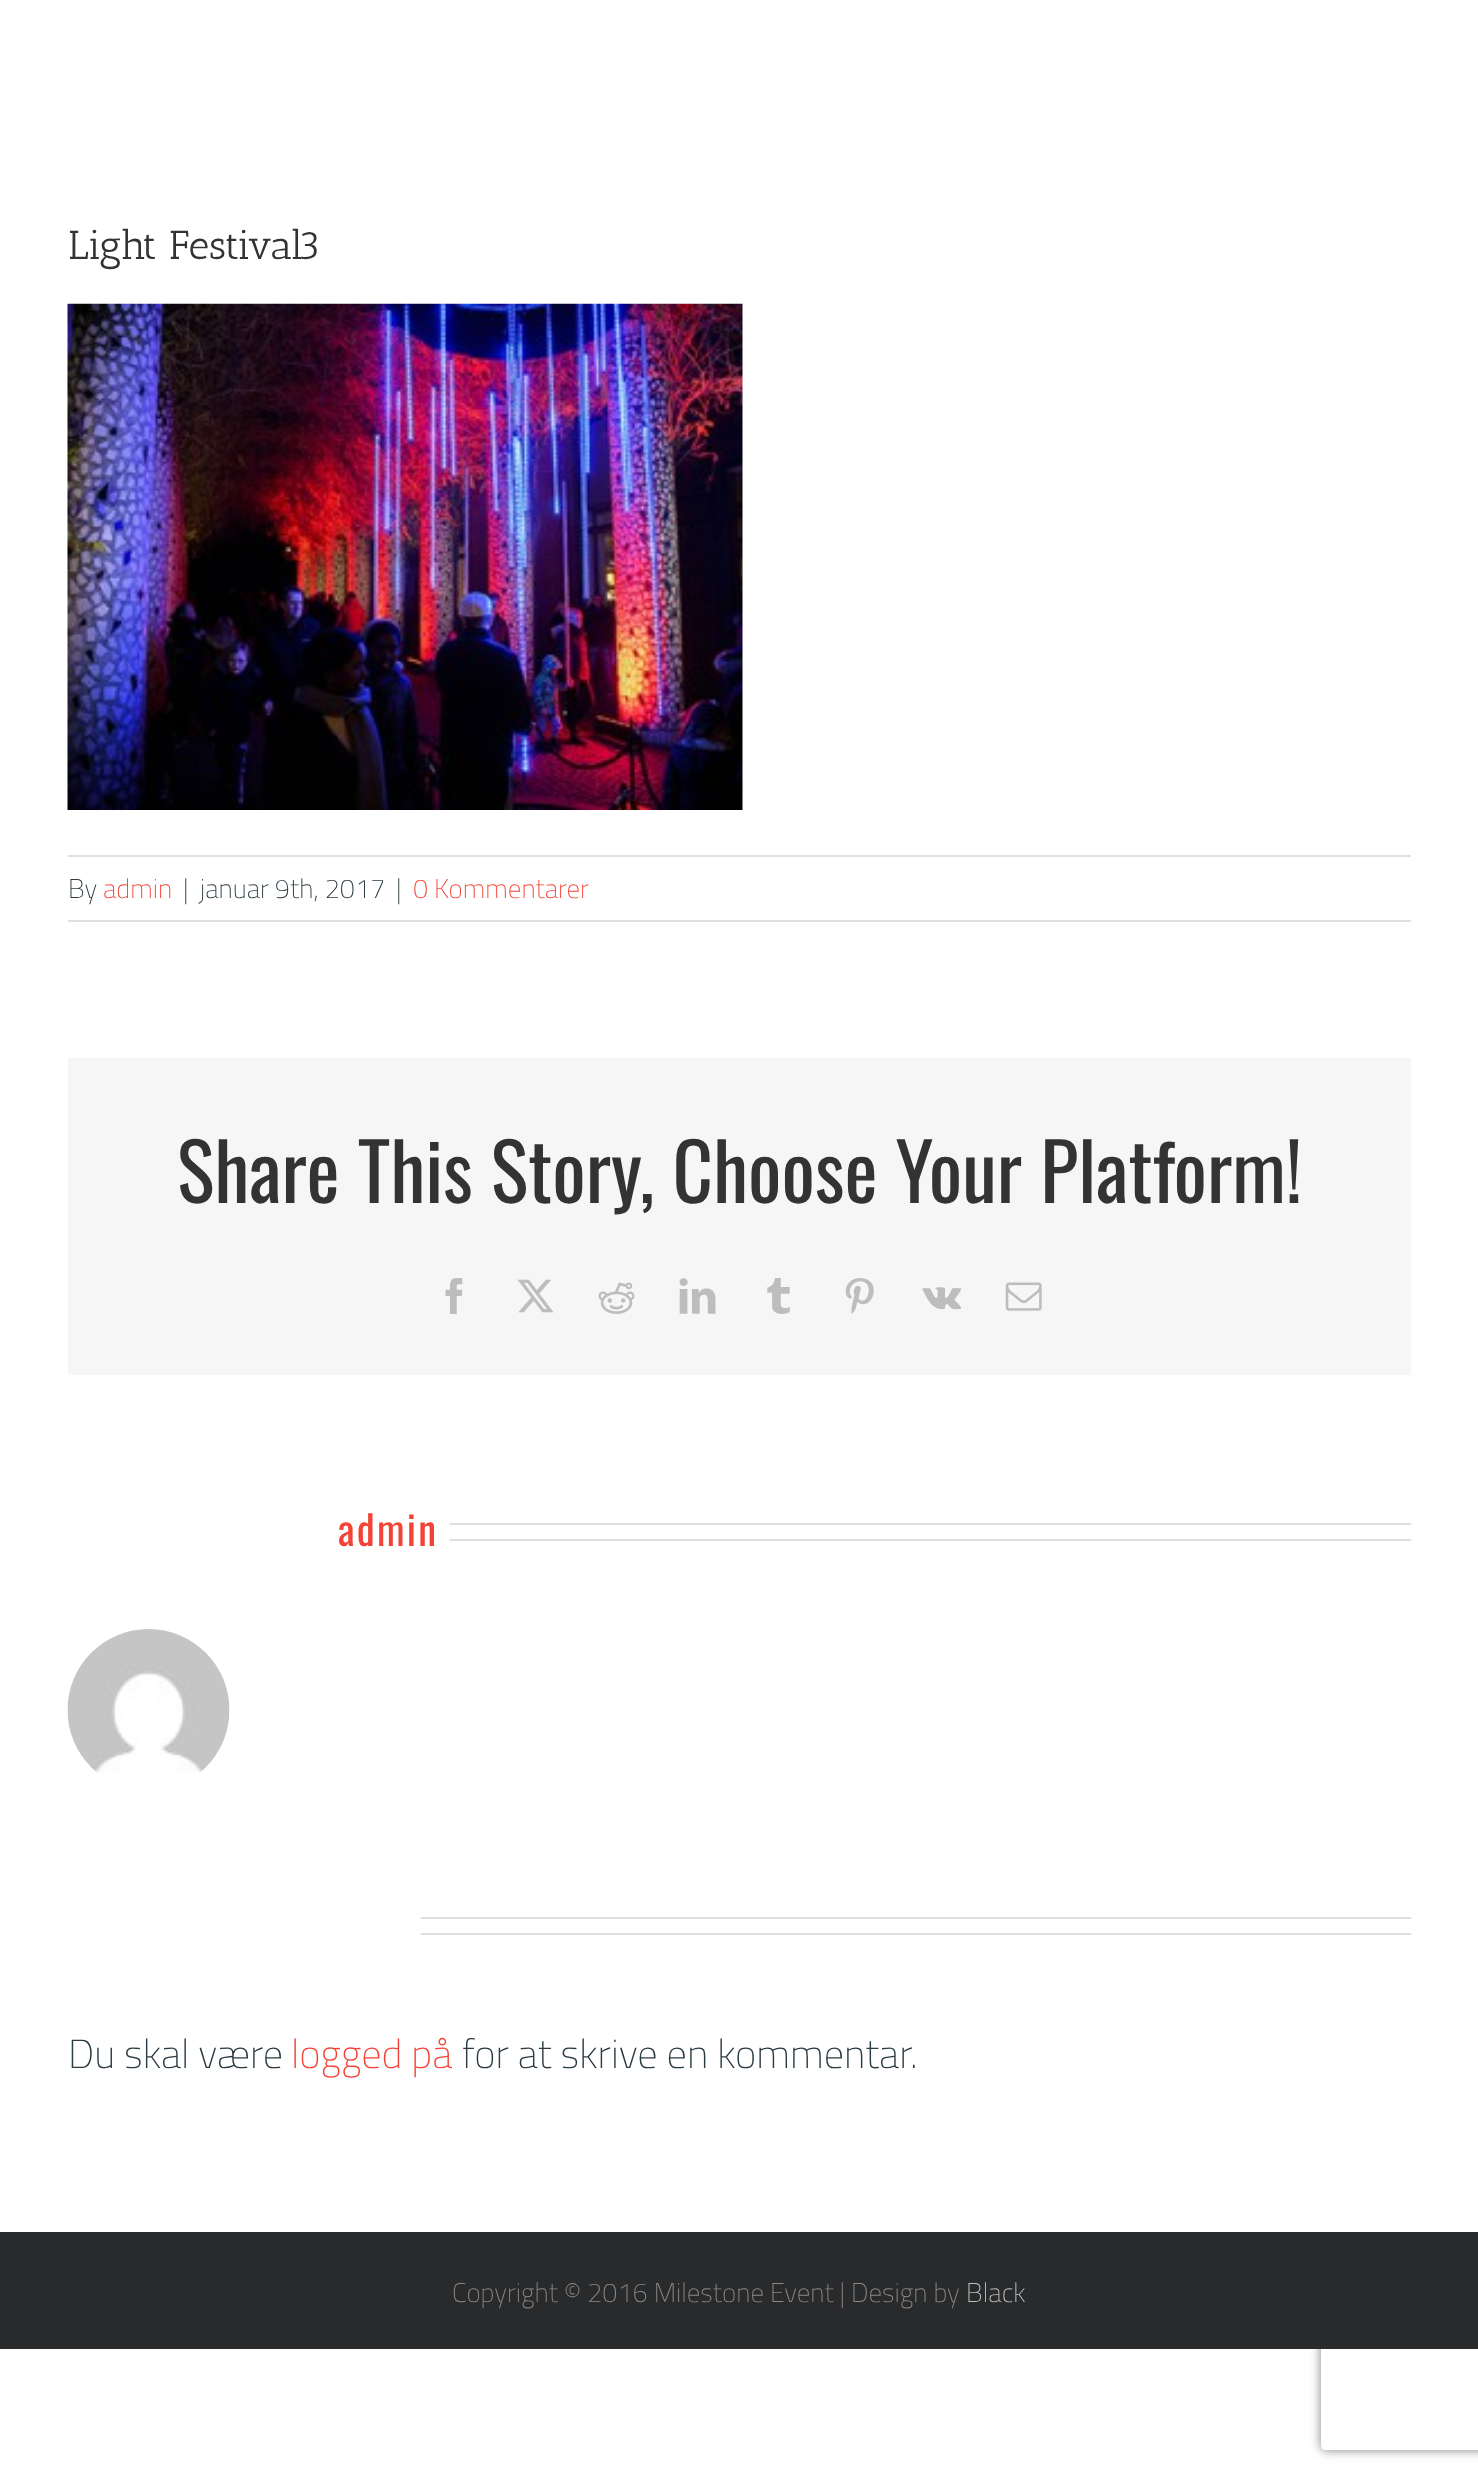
<!DOCTYPE html>
<meta charset="utf-8">
<style>body { margin: 0 } canvas { display: block }</style>
<canvas id="canvas" width="1478" height="2480"></canvas>
<script type="module">
  const canvas = document.getElementById("canvas");
  const g = canvas.getContext("2d");
  g.miterLimit = 4;
  g.fontKerning = "normal";
  function drawText(s, x, y, [font, color]) {
    g.font = font;
    g.fillStyle = color;
    g.fillText(s, x, y);
  }
  function fillBox(x, y, w, h, color) {
    g.fillStyle = color;
    g.fillRect(x, y, w, h);
  }
  async function drawPicture(src, x, y, w, h) {
    const img = new Image();
    img.src = src;
    await img.decode();
    g.drawImage(img, x, y, w, h);
  }

  const s1 = ["40.5px Antic Slab", "#333333"];
  const s2 = ["200 27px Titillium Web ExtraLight", "#2A3A42"];
  const s3 = ["200 27px Titillium Web ExtraLight", "#F44336"];
  const s4 = ["78.75px Oswald", "#333333"];
  const s5 = ["40.5px Oswald", "#F44336"];
  const s6 = ["200 40.5px Titillium Web ExtraLight", "#2A3A42"];
  const s7 = ["200 40.5px Titillium Web ExtraLight", "#F44336"];
  const s8 = ["200 27px Titillium Web ExtraLight", "#8C8989"];
  const s9 = ["200 27px Titillium Web ExtraLight", "#BFBFBF"];

  fillBox(0, 0, 1478, 2480, "#FFFFFF");
  drawText("Light Festival3", 68, 259, s1);
  await drawPicture("pic1.png", 67, 303, 676, 507);
  fillBox(68, 855, 1343, 2, "#E0DEDE");
  fillBox(68, 920, 1343, 2, "#E0DEDE");
  drawText("By", 68, 898, s2);
  drawText("admin", 103, 898, s3);
  drawText("|", 183, 898, s2);
  drawText("januar 9th, 2017", 200, 898, s2);
  drawText("|", 396, 898, s2);
  drawText("0 Kommentarer", 413, 898, s3);
  fillBox(68, 1058, 1343, 317, "#F6F6F6");
  drawText("Share This Story, Choose Your Platform!", 177, 1203, s4);
  await drawPicture("pic2.png", 445, 1278, 18, 36);
  await drawPicture("pic3.png", 517, 1279, 37, 34);
  await drawPicture("pic4.png", 598, 1282, 37, 32);
  await drawPicture("pic5.png", 679, 1278, 37, 36);
  await drawPicture("pic6.png", 767, 1278, 23, 36);
  await drawPicture("pic7.png", 845, 1278, 29, 36);
  await drawPicture("pic8.png", 922, 1287, 39, 23);
  await drawPicture("pic9.png", 1005, 1282, 37, 29);
  g.letterSpacing = "2.25px";
  drawText("admin", 338, 1546, s5);
  fillBox(450, 1523, 961, 2, "#E0DEDE");
  fillBox(450, 1539, 961, 2, "#E0DEDE");
  await drawPicture("pic10.png", 67, 1629, 163, 144);
  fillBox(421, 1917, 990, 2, "#E0DEDE");
  fillBox(421, 1933, 990, 2, "#E0DEDE");
  g.letterSpacing = "0px";
  drawText("Du skal være", 68, 2068, s6);
  drawText("logged på", 291, 2068, s7);
  drawText("for at skrive en kommentar.", 462, 2068, s6);
  g.save();
  g.beginPath();
  g.moveTo(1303, 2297);
  g.lineTo(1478, 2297);
  g.lineTo(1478, 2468);
  g.lineTo(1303, 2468);
  g.closePath();
  g.moveTo(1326, 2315);
  g.lineTo(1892, 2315);
  g.bezierCurveTo(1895, 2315, 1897, 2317, 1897, 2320);
  g.lineTo(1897, 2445);
  g.bezierCurveTo(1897, 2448, 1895, 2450, 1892, 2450);
  g.lineTo(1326, 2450);
  g.bezierCurveTo(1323, 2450, 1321, 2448, 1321, 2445);
  g.lineTo(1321, 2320);
  g.bezierCurveTo(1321, 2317, 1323, 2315, 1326, 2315);
  g.closePath();
  g.clip("evenodd");
  g.fillStyle = "#808080";
  g.filter = "blur(5.5px)";
  g.beginPath();
  g.roundRect(1321, 2315, 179, 135, 5);
  g.fill();
  g.filter = "none";
  g.restore();
  fillBox(0, 2232, 1478, 117, "#282A2B");
  drawText("Copyright © 2016 Milestone Event | Design by", 452, 2302, s8);
  drawText("Black", 966, 2302, s9);
</script>
